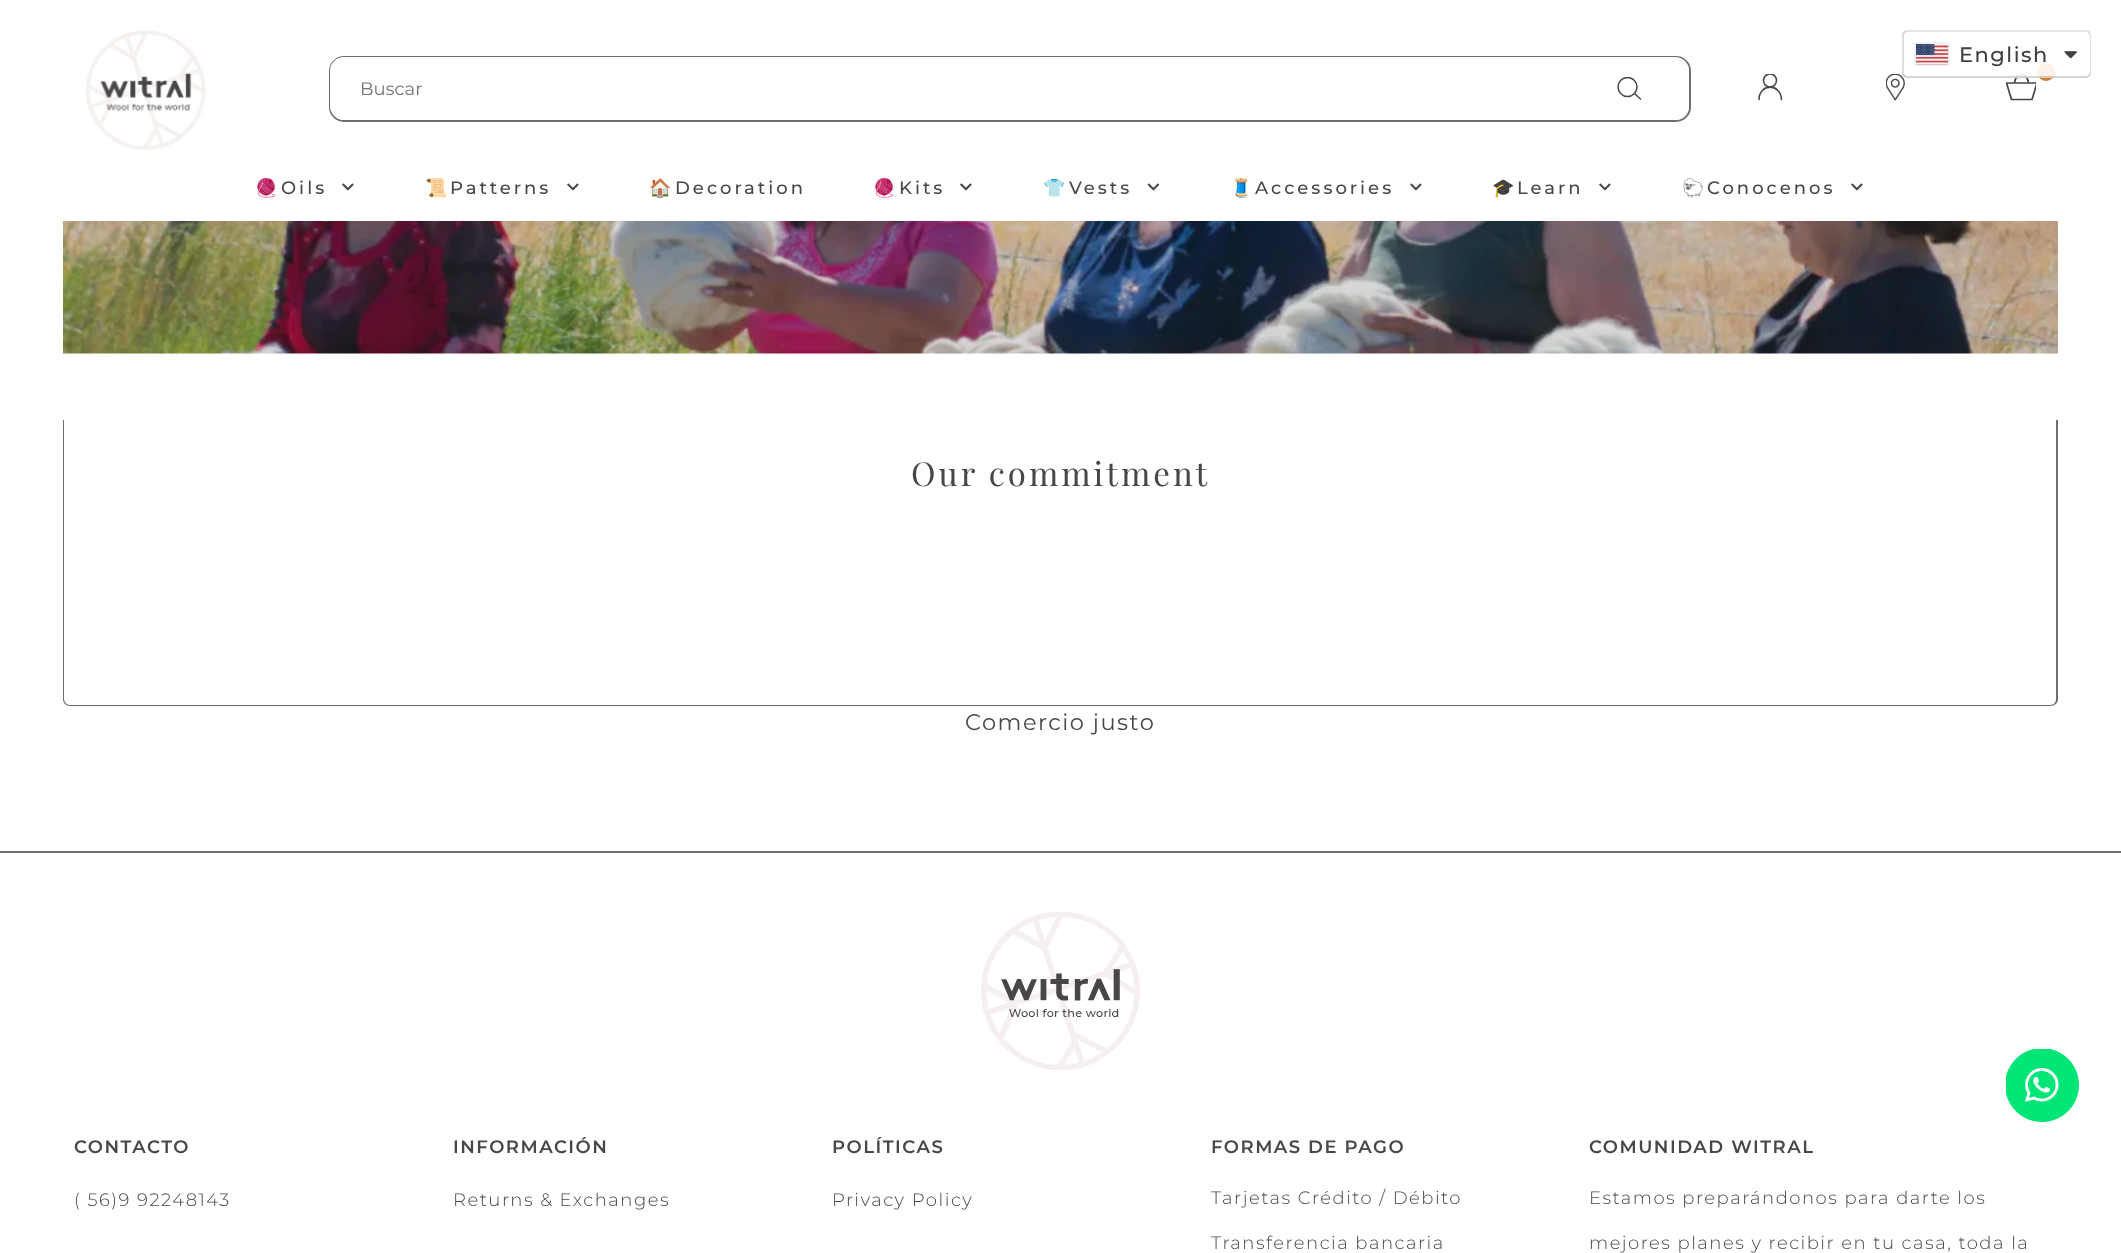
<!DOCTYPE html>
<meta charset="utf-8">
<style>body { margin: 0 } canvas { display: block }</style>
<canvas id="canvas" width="2121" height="1253"></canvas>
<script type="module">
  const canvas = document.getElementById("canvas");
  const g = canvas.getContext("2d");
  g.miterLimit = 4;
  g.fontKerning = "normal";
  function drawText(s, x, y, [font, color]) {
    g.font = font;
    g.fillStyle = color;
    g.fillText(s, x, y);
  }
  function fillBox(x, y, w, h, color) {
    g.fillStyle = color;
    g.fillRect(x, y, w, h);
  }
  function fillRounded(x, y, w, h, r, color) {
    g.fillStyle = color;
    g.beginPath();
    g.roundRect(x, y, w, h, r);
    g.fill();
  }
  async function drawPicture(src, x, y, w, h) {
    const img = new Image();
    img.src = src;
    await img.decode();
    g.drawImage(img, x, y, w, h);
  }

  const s1 = ["500 21px Montserrat", "#404040"];
  const s2 = ["18px Montserrat", "#757575"];
  const s3 = ["18px Noto Color Emoji", "#494746"];
  const s4 = ["500 18px Montserrat", "#494746"];
  const s5 = ["33px Playfair Display", "#494746"];
  const s6 = ["22.5px Montserrat", "#494746"];
  const s7 = ["600 18px Montserrat", "#494746"];
  const s8 = ["300 18px Montserrat", "#494746"];

  fillBox(0, 0, 2121, 1253, "#FFFFFF");
  await drawPicture("pic4.png", 1886, 74, 19, 27);
  g.fillStyle = "#D77E2B";
  g.beginPath();
  g.arc(2046, 72, 9, 0, Math.PI * 2);
  g.fill();
  g.save();
  g.beginPath();
  g.rect(2013, 74, 17, 9);
  g.clip();
  g.beginPath();
  g.ellipse(2021.5, 84, 7, 9.5, 0, 0, Math.PI * 2);
  g.strokeStyle = "#494746";
  g.lineWidth = 1.7;
  g.stroke();
  g.restore();
  fillRounded(1902, 30, 189, 48, 6, "rgba(255, 255, 255, 0.9)");
  g.fillStyle = "#E6E6E6";
  g.beginPath();
  g.moveTo(1908, 32);
  g.lineTo(2085, 32);
  g.bezierCurveTo(2088, 32, 2091, 34, 2091, 38);
  g.lineTo(2091, 36);
  g.bezierCurveTo(2091, 33, 2088, 30, 2085, 30);
  g.lineTo(1908, 30);
  g.bezierCurveTo(1905, 30, 1902, 33, 1902, 36);
  g.lineTo(1902, 38);
  g.bezierCurveTo(1902, 34, 1905, 32, 1908, 32);
  g.closePath();
  g.fill();
  g.fillStyle = "rgba(0, 0, 0, 0.17)";
  g.beginPath();
  g.moveTo(1902, 70);
  g.lineTo(1902, 72);
  g.bezierCurveTo(1902, 75, 1905, 78, 1908, 78);
  g.lineTo(2085, 78);
  g.bezierCurveTo(2088, 78, 2091, 75, 2091, 72);
  g.lineTo(2091, 70);
  g.bezierCurveTo(2091, 74, 2088, 76, 2085, 76);
  g.lineTo(1908, 76);
  g.bezierCurveTo(1905, 76, 1902, 74, 1902, 70);
  g.closePath();
  g.fill();
  g.fillStyle = "rgba(0, 0, 0, 0.13)";
  g.beginPath();
  g.moveTo(2084, 78);
  g.bezierCurveTo(2092, 78, 2091, 72, 2091, 66);
  g.lineTo(2091, 42);
  g.bezierCurveTo(2091, 36, 2092, 30, 2084, 30);
  g.bezierCurveTo(2087, 30, 2090, 33, 2090, 36);
  g.lineTo(2090, 72);
  g.bezierCurveTo(2090, 75, 2087, 78, 2084, 78);
  g.closePath();
  g.fill();
  g.beginPath();
  g.moveTo(1908, 30);
  g.bezierCurveTo(1905, 30, 1902, 33, 1902, 36);
  g.lineTo(1902, 72);
  g.bezierCurveTo(1902, 75, 1905, 78, 1908, 78);
  g.lineTo(1910, 78);
  g.bezierCurveTo(1906, 78, 1904, 75, 1904, 72);
  g.lineTo(1904, 36);
  g.bezierCurveTo(1904, 33, 1906, 30, 1910, 30);
  g.closePath();
  g.fill();
  g.beginPath();
  g.roundRect(1915, 43, 34, 22, 2);
  g.strokeStyle = "#F0F1F2";
  g.lineWidth = 2;
  g.stroke();
  await drawPicture("pic1.png", 1916, 44, 33, 21);
  g.letterSpacing = "1.5px";
  drawText("English", 1959, 62, s1);
  await drawPicture("pic2.png", 2064, 51, 13, 8);
  await drawPicture("pic3.png", 85, 30, 121, 120);
  g.beginPath();
  g.roundRect(330, 57, 1360, 64, 14);
  g.strokeStyle = "#706D6C";
  g.stroke();
  fillRounded(330, 57, 1359, 63, 14, "#FFFFFF");
  g.letterSpacing = "0px";
  drawText("Buscar", 360, 95, s2);
  g.save();
  g.beginPath();
  g.rect(1617, 77, 24, 24);
  g.clip();
  g.beginPath();
  g.arc(1627.5, 87, 9.5, 0, Math.PI * 2);
  g.strokeStyle = "#494746";
  g.lineWidth = 1.5;
  g.stroke();
  g.restore();
  g.beginPath();
  g.moveTo(1640.5, 99);
  g.lineTo(1634.5, 93.5);
  g.strokeStyle = "#494746";
  g.lineWidth = 1.5;
  g.lineCap = "round";
  g.lineJoin = "round";
  g.stroke();
  g.beginPath();
  g.moveTo(1759, 99.5);
  g.bezierCurveTo(1759.5, 83, 1780.5, 83, 1781.5, 99.5);
  g.lineWidth = 1.6;
  g.stroke();
  g.save();
  g.beginPath();
  g.rect(1758, 74, 24, 27);
  g.clip();
  g.beginPath();
  g.arc(1770, 80.5, 6.5, 0, Math.PI * 2);
  g.stroke();
  g.restore();
  g.save();
  g.beginPath();
  g.rect(2006, 74, 30, 27);
  g.clip();
  g.beginPath();
  g.moveTo(2006.5, 83);
  g.lineTo(2037, 83);
  g.lineTo(2032, 99.5);
  g.lineTo(2011.5, 99.5);
  g.closePath();
  g.lineWidth = 1.7;
  g.stroke();
  g.restore();
  g.letterSpacing = "3px";
  drawText("🧶", 255, 194, s3);
  drawText("Oils", 281, 194, s4);
  await drawPicture("pic5.png", 342, 183, 12, 8);
  drawText("📜", 425, 194, s3);
  drawText("Patterns", 450, 194, s4);
  await drawPicture("pic5.png", 567, 183, 12, 8);
  drawText("🏠", 649, 194, s3);
  drawText("Decoration", 675, 194, s4);
  drawText("🧶", 873, 194, s3);
  drawText("Kits", 899, 194, s4);
  await drawPicture("pic5.png", 960, 183, 12, 8);
  drawText("👕", 1043, 194, s3);
  drawText("Vests", 1069, 194, s4);
  await drawPicture("pic6.png", 1147, 183, 13, 8);
  drawText("🧵", 1230, 194, s3);
  drawText("Accessories", 1255, 194, s4);
  await drawPicture("pic5.png", 1410, 183, 12, 8);
  drawText("🎓", 1492, 194, s3);
  drawText("Learn", 1517, 194, s4);
  await drawPicture("pic5.png", 1599, 183, 12, 8);
  drawText("🐑", 1682, 194, s3);
  drawText("Conocenos", 1707, 194, s4);
  await drawPicture("pic5.png", 1851, 183, 12, 8);
  await drawPicture("pic7.png", 63, 221, 1995, 133);
  g.fillStyle = "#706D6C";
  g.beginPath();
  g.moveTo(63, 420);
  g.lineTo(2058, 420);
  g.lineTo(2058, 699);
  g.bezierCurveTo(2058, 703, 2055, 706, 2050, 706);
  g.lineTo(70, 706);
  g.bezierCurveTo(66, 706, 63, 703, 63, 699);
  g.closePath();
  g.moveTo(64, 420);
  g.lineTo(2056, 420);
  g.lineTo(2056, 699);
  g.bezierCurveTo(2056, 702, 2054, 705, 2050, 705);
  g.lineTo(70, 705);
  g.bezierCurveTo(67, 705, 64, 702, 64, 699);
  g.closePath();
  g.fill("evenodd");
  drawText("Our commitment", 911, 486, s5);
  g.letterSpacing = "1.5px";
  drawText("Comercio justo", 965, 730, s6);
  await drawPicture("pic8.png", 2006, 1049, 73, 73);
  fillBox(0, 851, 2121, 2, "#706D6C");
  await drawPicture("pic9.png", 981, 912, 159, 158);
  drawText("CONTACTO", 74, 1153, s7);
  drawText("( 56)9 92248143", 74, 1206, s8);
  drawText("INFORMACIÓN", 453, 1153, s7);
  drawText("Returns & Exchanges", 453, 1206, s8);
  drawText("POLÍTICAS", 832, 1153, s7);
  drawText("Privacy Policy", 832, 1206, s8);
  drawText("FORMAS DE PAGO", 1211, 1153, s7);
  drawText("Tarjetas Crédito / Débito", 1211, 1204, s8);
  drawText("Transferencia bancaria", 1211, 1249, s8);
  drawText("COMUNIDAD WITRAL", 1589, 1153, s7);
  drawText("Estamos preparándonos para darte los", 1589, 1204, s8);
  drawText("mejores planes y recibir en tu casa, toda la", 1589, 1249, s8);
</script>
